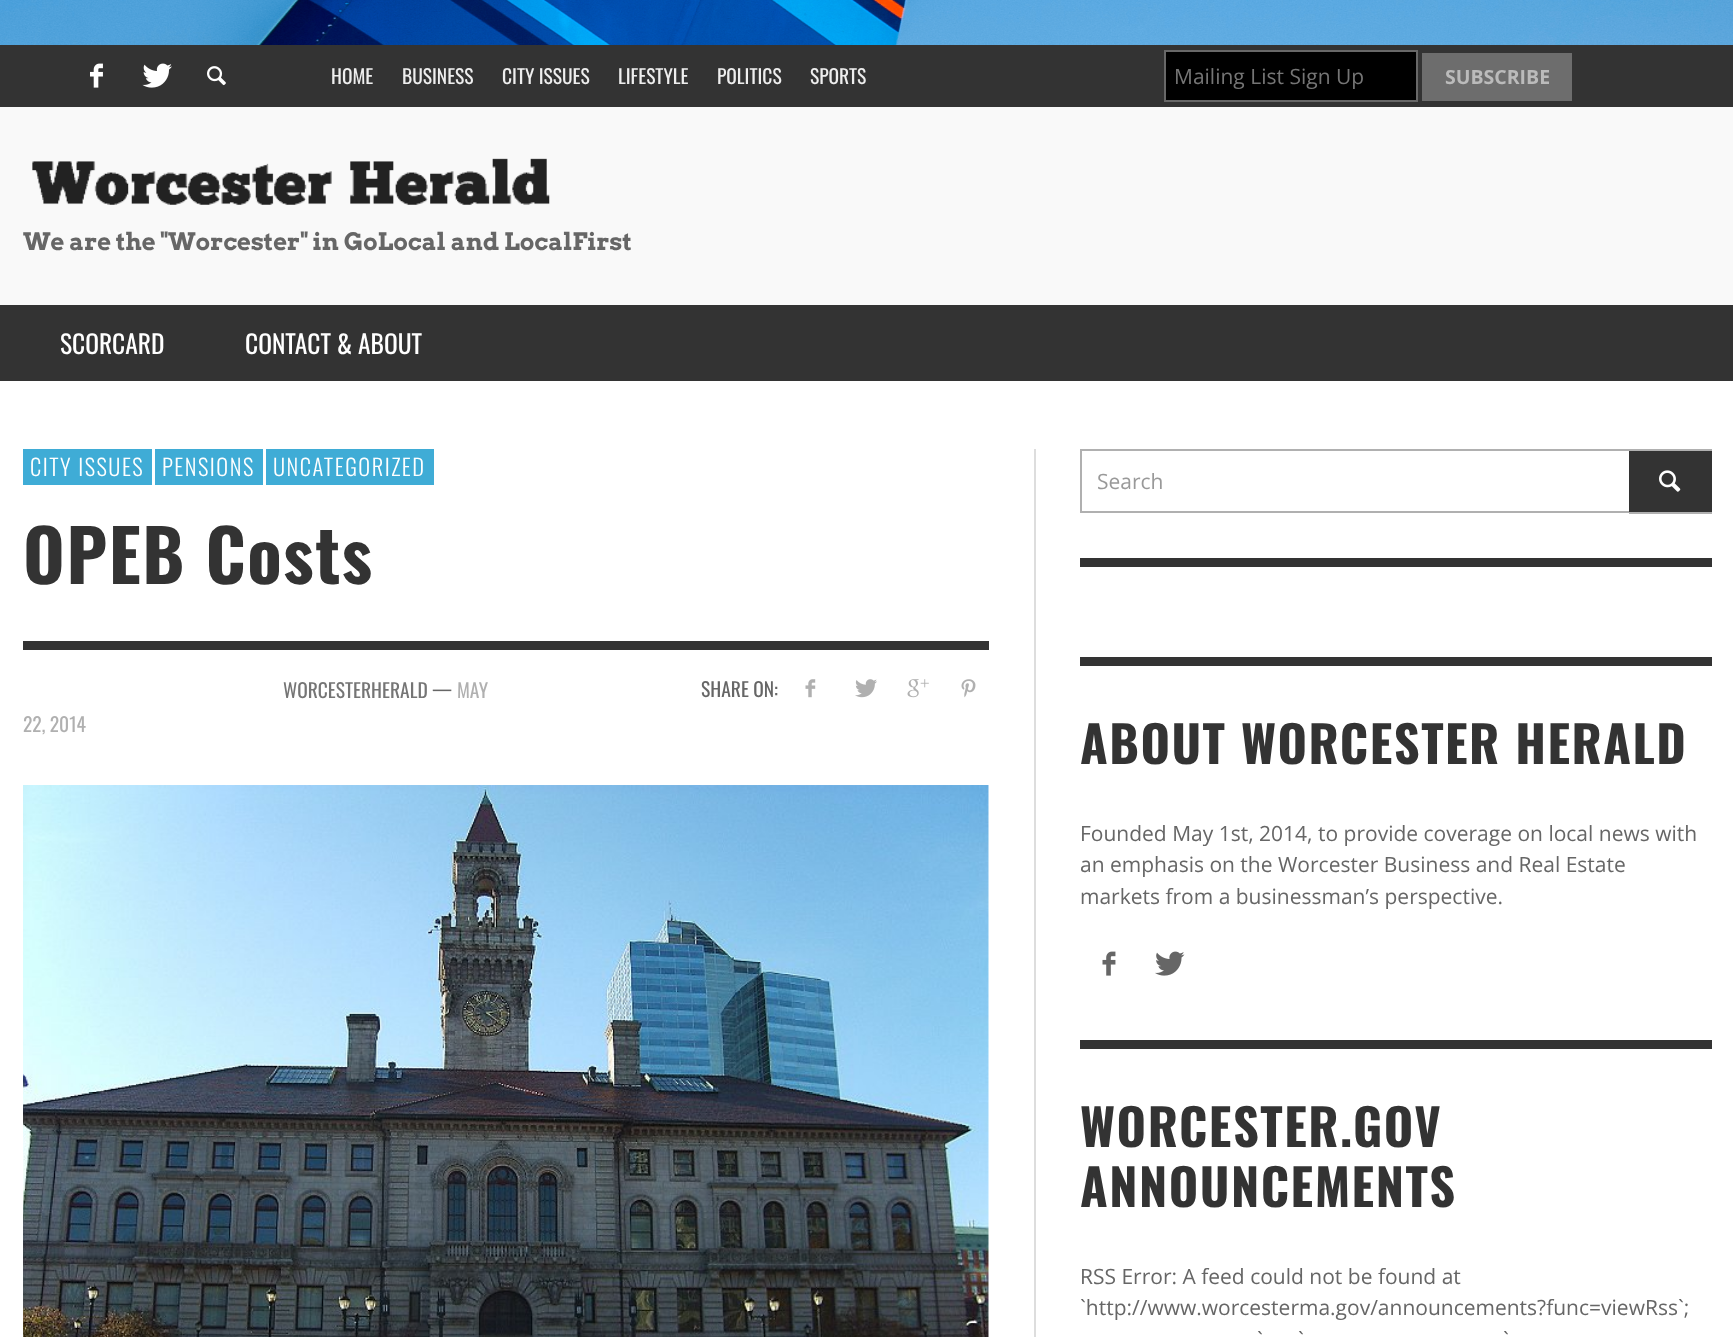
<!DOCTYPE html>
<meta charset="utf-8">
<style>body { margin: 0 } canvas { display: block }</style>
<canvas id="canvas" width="1733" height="1337"></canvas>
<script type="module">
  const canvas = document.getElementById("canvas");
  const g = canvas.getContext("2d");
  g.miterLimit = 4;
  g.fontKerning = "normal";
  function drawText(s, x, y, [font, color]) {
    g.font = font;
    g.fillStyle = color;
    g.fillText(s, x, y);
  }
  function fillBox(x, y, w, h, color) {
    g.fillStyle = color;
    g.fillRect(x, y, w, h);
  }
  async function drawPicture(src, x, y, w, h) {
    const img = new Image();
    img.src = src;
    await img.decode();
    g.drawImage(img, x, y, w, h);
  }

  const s1 = ["19.5px Oswald", "#EEEEEE"];
  const s2 = ["21px Open Sans", "#757575"];
  const s3 = ["bold 19.5px Open Sans", "#BBBBBB"];
  const s4 = ["bold 24px Arvo", "#666666"];
  const s5 = ["25.5px Oswald", "#FFFFFF"];
  const s6 = ["300 22.5px Oswald", "#FFFFFF"];
  const s7 = ["bold 71.5px Oswald", "#333333"];
  const s8 = ["19.5px Oswald", "#757575"];
  const s9 = ["19.5px Oswald", "#666666"];
  const s10 = ["19.5px Oswald", "#B0B0B0"];
  const s11 = ["21px Open Sans", "#999999"];
  const s12 = ["bold 50.4px Oswald", "#333333"];
  const s13 = ["21px Open Sans", "#666666"];

  fillBox(0, 0, 1733, 1337, "#FFFFFF");
  await drawPicture("pic1.png", 0, 0, 1733, 45);
  fillBox(0, 45, 1733, 62, "#333333");
  await drawPicture("pic2.png", 90, 63, 13, 25);
  await drawPicture("pic3.png", 142, 63, 30, 25);
  await drawPicture("pic4.png", 207, 66, 19, 20);
  drawText("HOME", 331, 84, s1);
  drawText("BUSINESS", 402, 84, s1);
  drawText("CITY ISSUES", 502, 84, s1);
  drawText("LIFESTYLE", 618, 84, s1);
  drawText("POLITICS", 717, 84, s1);
  drawText("SPORTS", 810, 84, s1);
  g.fillStyle = "#000000";
  g.beginPath();
  g.rect(1165, 51, 252, 50);
  g.fill();
  g.strokeStyle = "#686868";
  g.lineWidth = 2;
  g.stroke();
  drawText("Mailing List Sign Up", 1174, 84, s2);
  fillBox(1422, 53, 150, 48, "#6D6D6D");
  drawText("SUBSCRIBE", 1445, 84, s3);
  fillBox(0, 107, 1733, 198, "#F9F9F9");
  await drawPicture("pic5.png", 32, 158, 518, 47);
  drawText("We are the \"Worcester\" in GoLocal and LocalFirst", 23, 250, s4);
  fillBox(0, 305, 1733, 76, "#333333");
  drawText("SCORCARD", 60, 354, s5);
  drawText("CONTACT & ABOUT", 245, 354, s5);
  fillBox(23, 449, 129, 36, "#3FACD6");
  g.letterSpacing = "1.5px";
  drawText("CITY ISSUES", 30, 476, s6);
  fillBox(155, 449, 108, 36, "#3FACD6");
  drawText("PENSIONS", 162, 476, s6);
  fillBox(266, 449, 168, 36, "#3FACD6");
  drawText("UNCATEGORIZED", 273, 476, s6);
  drawText("OPEB Costs", 23, 584, s7);
  fillBox(23, 641, 966, 9, "#333333");
  g.letterSpacing = "0px";
  drawText("WORCESTERHERALD", 283, 698, s8);
  drawText("—", 432, 696, s9);
  drawText("MAY", 457, 698, s10);
  drawText("22, 2014", 23, 732, s10);
  drawText("SHARE ON:", 701, 697, s9);
  await drawPicture("pic6.png", 805, 679, 11, 19);
  await drawPicture("pic7.png", 855, 679, 22, 19);
  await drawPicture("pic8.png", 907, 679, 22, 19);
  await drawPicture("pic9.png", 961, 679, 15, 19);
  await drawPicture("pic10.png", 23, 785, 966, 552);
  fillBox(1034, 449, 2, 888, "#DDDDDD");
  g.strokeStyle = "#B0B0B0";
  g.strokeRect(1081, 450, 630, 62);
  drawText("Search", 1097, 489, s11);
  fillBox(1629, 451, 83, 61, "#333333");
  fillBox(1629, 513, 83, 1, "#B0B0B0");
  await drawPicture("pic11.png", 1659, 470, 22, 22);
  fillBox(1080, 558, 632, 9, "#333333");
  fillBox(1080, 657, 632, 9, "#333333");
  g.letterSpacing = "1.5px";
  drawText("ABOUT WORCESTER HERALD", 1080, 764, s12);
  g.letterSpacing = "0px";
  drawText("Founded May 1st, 2014, to provide coverage on local news with", 1080, 841, s13);
  drawText("an emphasis on the Worcester Business and Real Estate", 1080, 872, s13);
  drawText("markets from a businessman’s perspective.", 1080, 904, s13);
  await drawPicture("pic12.png", 1102, 951, 14, 25);
  await drawPicture("pic13.png", 1155, 951, 30, 25);
  fillBox(1080, 1040, 632, 9, "#333333");
  g.letterSpacing = "1.5px";
  drawText("WORCESTER.GOV", 1080, 1147, s12);
  drawText("ANNOUNCEMENTS", 1080, 1207, s12);
  g.letterSpacing = "0px";
  drawText("RSS Error: A feed could not be found at", 1080, 1284, s13);
  drawText("`http://www.worcesterma.gov/announcements?func=viewRss`;", 1080, 1315, s13);
  drawText("`", 1257, 1347, s13);
  drawText("`", 1298, 1347, s13);
  drawText("`", 1503, 1347, s13);
</script>
